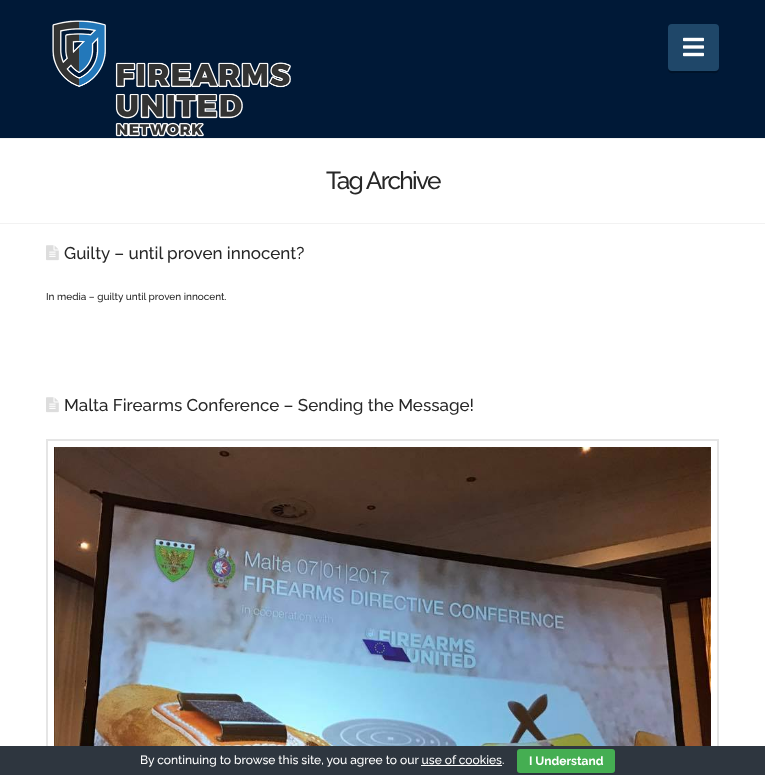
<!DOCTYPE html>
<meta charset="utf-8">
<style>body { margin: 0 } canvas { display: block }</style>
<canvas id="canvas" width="765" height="775"></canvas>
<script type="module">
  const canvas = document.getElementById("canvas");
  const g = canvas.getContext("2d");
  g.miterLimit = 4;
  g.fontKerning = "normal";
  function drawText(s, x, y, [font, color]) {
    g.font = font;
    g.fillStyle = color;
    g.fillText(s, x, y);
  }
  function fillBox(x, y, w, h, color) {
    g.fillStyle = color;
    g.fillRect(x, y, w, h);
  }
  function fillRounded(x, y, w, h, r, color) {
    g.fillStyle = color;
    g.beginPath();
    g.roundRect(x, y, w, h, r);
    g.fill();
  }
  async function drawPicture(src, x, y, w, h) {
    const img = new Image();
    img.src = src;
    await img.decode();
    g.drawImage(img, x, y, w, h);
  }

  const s1 = ["500 24.5px Raleway", "#272727"];
  const s2 = ["500 17px Raleway", "#272727"];
  const s3 = ["500 10px Raleway", "#272727"];
  const s4 = ["500 12px Raleway", "#FFFFFF"];
  const s5 = ["bold 12px Raleway", "#FFFFFF"];

  fillBox(0, 0, 765, 775, "#FFFFFF");
  fillBox(0, 0, 765, 138, "#001937");
  await drawPicture("pic1.png", 52, 20, 239, 117);
  g.fillStyle = "#001329";
  g.beginPath();
  g.moveTo(668, 67);
  g.bezierCurveTo(668, 75, 672, 73, 679, 73);
  g.lineTo(708, 73);
  g.bezierCurveTo(715, 73, 719, 75, 719, 67);
  g.bezierCurveTo(719, 69, 717, 71, 715, 71);
  g.lineTo(672, 71);
  g.bezierCurveTo(670, 71, 668, 69, 668, 67);
  g.closePath();
  g.fill();
  fillRounded(668, 24, 51, 47, 4, "rgba(122, 211, 255, 0.25)");
  await drawPicture("pic2.png", 683, 37, 21, 20);
  fillBox(0, 138, 765, 1, "#F2F2F2");
  fillBox(0, 223, 765, 1, "#F2F2F2");
  g.letterSpacing = "-1.75px";
  drawText("Tag Archive", 326, 189, s1);
  await drawPicture("pic3.png", 46, 245, 13, 16);
  g.letterSpacing = "0px";
  drawText("Guilty – until proven innocent?", 64, 259, s2);
  drawText("In media – guilty until proven innocent.", 46, 300, s3);
  await drawPicture("pic3.png", 46, 397, 13, 16);
  drawText("Malta Firearms Conference – Sending the Message!", 64, 411, s2);
  g.strokeStyle = "#E5E5E5";
  g.lineWidth = 2;
  g.strokeRect(47, 440, 671, 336);
  await drawPicture("pic4.png", 54, 447, 657, 299);
  fillBox(0, 746, 765, 29, "#2E363F");
  drawText("By continuing to browse this site, you agree to our use of cookies.", 140, 764, s4);
  fillRounded(517, 749, 98, 24, 3, "#45AE52");
  drawText("I Understand", 529, 765, s5);
  fillBox(421, 765, 81, 1, "#FFFFFF");
</script>
